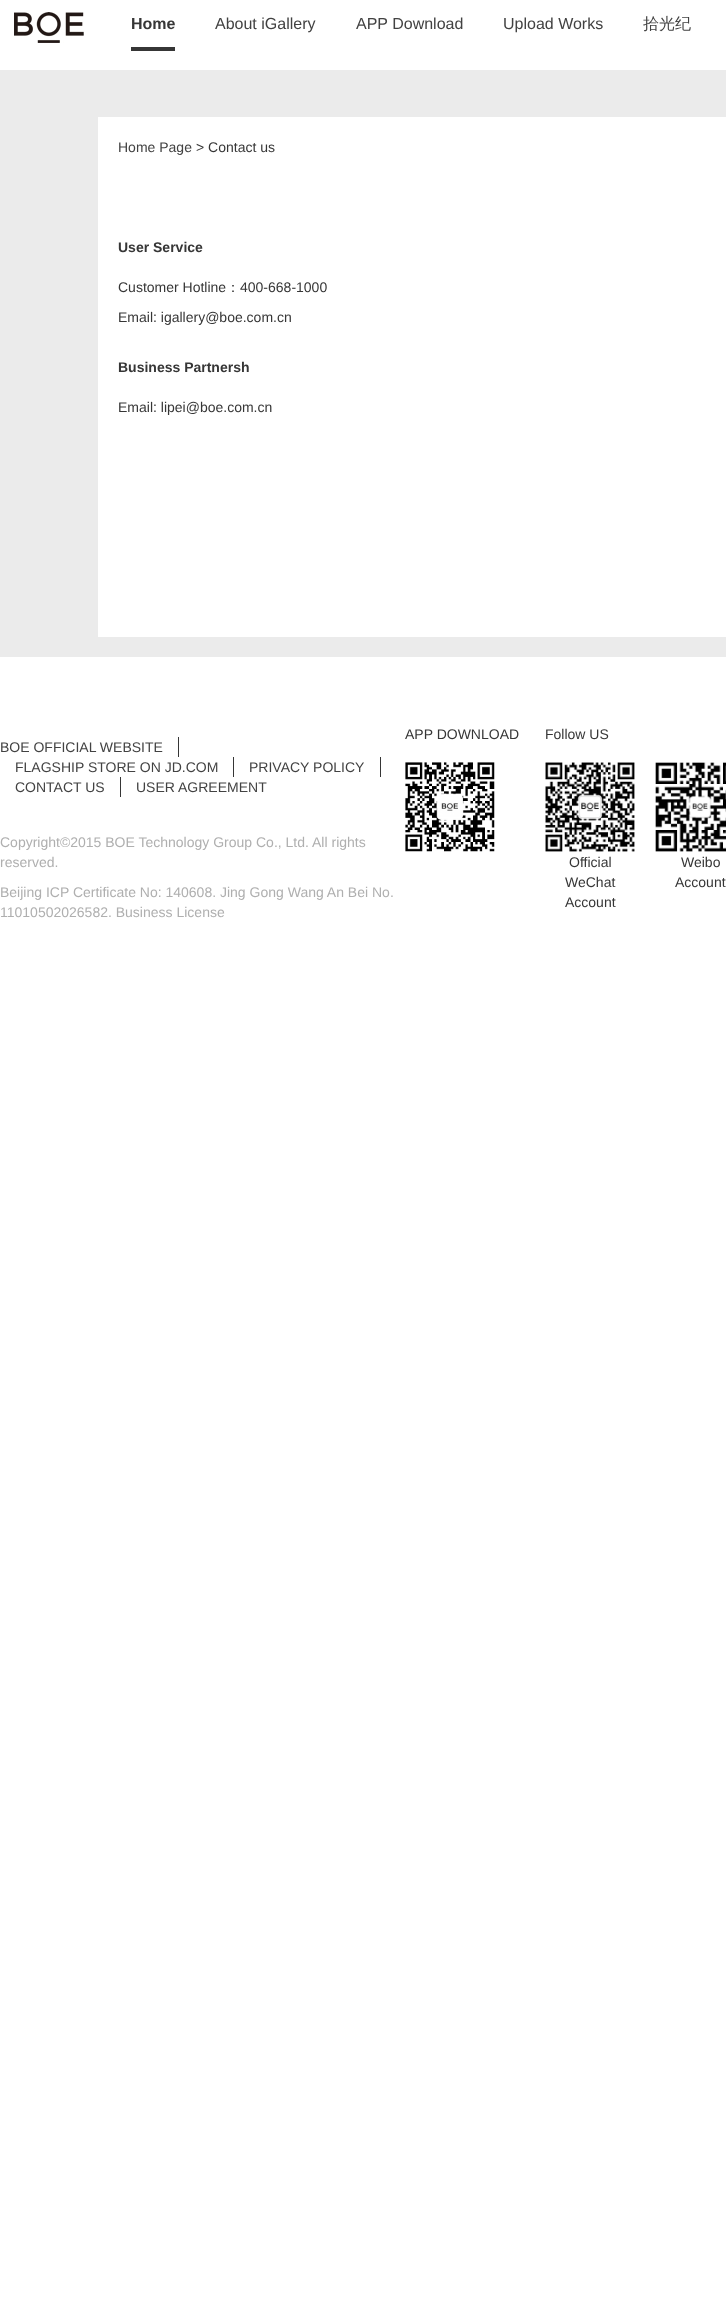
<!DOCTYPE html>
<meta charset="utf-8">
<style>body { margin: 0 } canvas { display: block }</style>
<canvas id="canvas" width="726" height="2314"></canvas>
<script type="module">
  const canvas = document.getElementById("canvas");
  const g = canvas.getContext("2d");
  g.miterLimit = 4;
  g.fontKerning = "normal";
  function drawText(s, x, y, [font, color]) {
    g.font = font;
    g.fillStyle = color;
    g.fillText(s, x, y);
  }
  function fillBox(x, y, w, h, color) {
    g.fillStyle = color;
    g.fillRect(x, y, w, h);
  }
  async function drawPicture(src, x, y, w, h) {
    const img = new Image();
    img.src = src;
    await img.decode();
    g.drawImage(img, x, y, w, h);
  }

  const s1 = ["bold 16px Liberation Sans", "#363636"];
  const s2 = ["16px Liberation Sans", "#424242"];
  const s3 = ["500 16px WenQuanYi Zen Hei", "#424242"];
  const s4 = ["14px Liberation Sans", "#424242"];
  const s5 = ["14px Liberation Sans", "#363636"];
  const s6 = ["bold 14px Liberation Sans", "#363636"];
  const s7 = ["500 14px WenQuanYi Zen Hei", "#363636"];
  const s8 = ["14px Liberation Sans", "#AFAFAF"];

  fillBox(0, 0, 726, 2314, "#FFFFFF");
  await drawPicture("pic1.png", 14, 12, 70, 31);
  fillBox(131, 47, 44, 4, "#363636");
  drawText("Home", 131, 29, s1);
  drawText("About iGallery", 215, 29, s2);
  drawText("APP Download", 356, 29, s2);
  drawText("Upload Works", 503, 29, s2);
  drawText("拾光纪", 643, 29, s3);
  fillBox(0, 70, 726, 587, "#EBEBEB");
  fillBox(98, 117, 628, 520, "#FFFFFF");
  drawText("Home Page", 118, 152, s4);
  drawText("> Contact us", 196, 152, s5);
  drawText("User Service", 118, 252, s6);
  drawText("Customer Hotline", 118, 292, s5);
  drawText("：", 226, 292, s7);
  drawText("400-668-1000", 240, 292, s5);
  drawText("Email: igallery@boe.com.cn", 118, 322, s5);
  drawText("Business Partnersh", 118, 372, s6);
  drawText("Email: lipei@boe.com.cn", 118, 412, s5);
  fillBox(178, 737, 1, 20, "#363636");
  drawText("BOE OFFICIAL WEBSITE", 0, 752, s4);
  fillBox(233, 757, 1, 20, "#363636");
  drawText("FLAGSHIP STORE ON JD.COM", 15, 772, s4);
  fillBox(380, 757, 1, 20, "#363636");
  drawText("PRIVACY POLICY", 249, 772, s4);
  fillBox(120, 777, 1, 20, "#363636");
  drawText("CONTACT US", 15, 792, s4);
  drawText("USER AGREEMENT", 136, 792, s4);
  drawText("Copyright©2015 BOE Technology Group Co., Ltd. All rights", 0, 847, s8);
  drawText("reserved.", 0, 867, s8);
  drawText("Beijing ICP Certificate No: 140608. Jing Gong Wang An Bei No.", 0, 897, s8);
  drawText("11010502026582. Business License", 0, 917, s8);
  drawText("APP DOWNLOAD", 405, 739, s5);
  await drawPicture("pic2.png", 405, 762, 90, 90);
  drawText("Follow US", 545, 739, s5);
  await drawPicture("pic3.png", 545, 762, 90, 90);
  drawText("Official", 569, 867, s5);
  drawText("WeChat", 565, 887, s5);
  drawText("Account", 565, 907, s5);
  await drawPicture("pic4.png", 655, 762, 71, 90);
  drawText("Weibo", 681, 867, s5);
  drawText("Account", 675, 887, s5);
</script>
